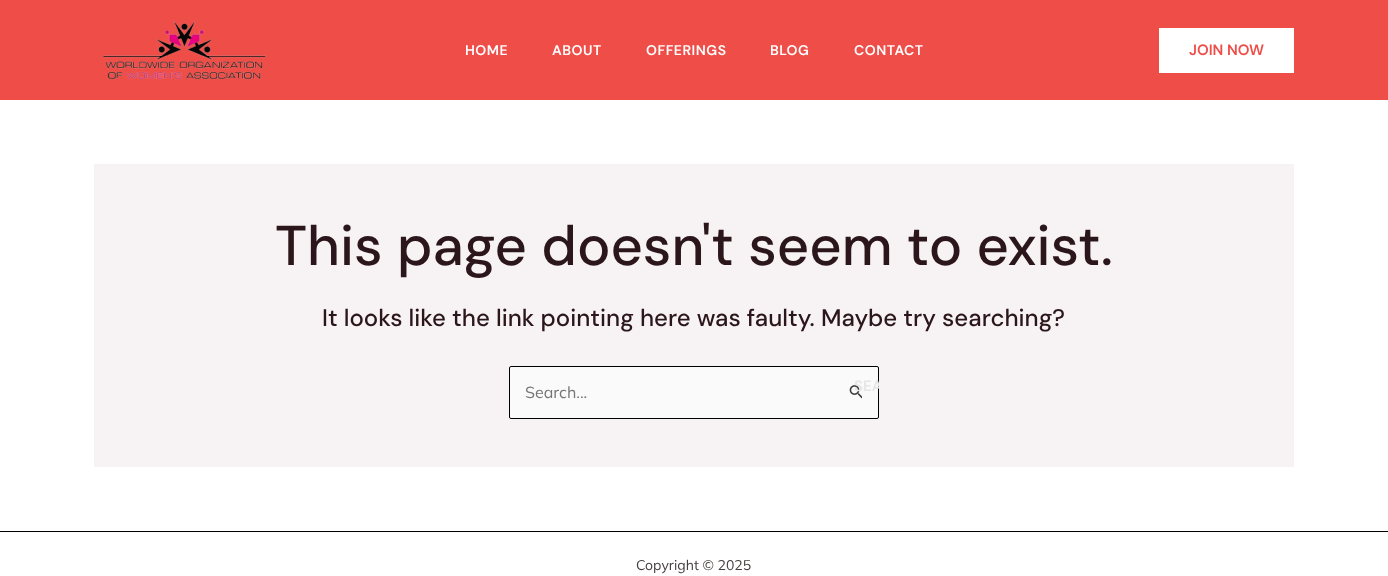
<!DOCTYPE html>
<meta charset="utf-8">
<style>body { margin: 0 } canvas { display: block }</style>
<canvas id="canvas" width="1388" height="576"></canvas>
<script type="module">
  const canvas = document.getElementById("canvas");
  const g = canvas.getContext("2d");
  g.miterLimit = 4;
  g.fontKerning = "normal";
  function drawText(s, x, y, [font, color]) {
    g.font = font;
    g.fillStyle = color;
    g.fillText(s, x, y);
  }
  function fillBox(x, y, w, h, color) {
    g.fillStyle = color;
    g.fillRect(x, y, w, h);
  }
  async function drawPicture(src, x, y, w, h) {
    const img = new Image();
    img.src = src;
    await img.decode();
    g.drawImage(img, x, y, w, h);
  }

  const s1 = ["600 14px DM Sans", "#FFFFFF"];
  const s2 = ["600 15px DM Sans", "#EF4D48"];
  const s3 = ["500 56px DM Sans", "#2B161B"];
  const s4 = ["500 24px DM Sans", "#2B161B"];
  const s5 = ["16px Mulish", "#757575"];
  const s6 = ["600 15px DM Sans", "#E6E6E6"];
  const s7 = ["14px Mulish", "#453E3E"];

  fillBox(0, 0, 1388, 576, "#FFFFFF");
  fillBox(0, 0, 1388, 100, "#EF4D48");
  await drawPicture("pic1.png", 103, 21, 163, 59);
  g.letterSpacing = "0.5px";
  drawText("HOME", 465, 55, s1);
  drawText("ABOUT", 552, 55, s1);
  drawText("OFFERINGS", 646, 55, s1);
  drawText("BLOG", 770, 55, s1);
  drawText("CONTACT", 854, 55, s1);
  fillBox(1159, 28, 135, 45, "#FFFFFF");
  g.letterSpacing = "0px";
  drawText("JOIN NOW", 1189, 55, s2);
  fillBox(94, 164, 1200, 303, "#F7F3F5");
  drawText("This page doesn't seem to exist.", 275, 265, s3);
  drawText("It looks like the link pointing here was faulty. Maybe try searching?", 322, 326, s4);
  g.fillStyle = "#FAFAFA";
  g.beginPath();
  g.roundRect(509.5, 366.5, 369, 52, 1.5);
  g.fill();
  g.strokeStyle = "#000000";
  g.stroke();
  drawText("Search...", 525, 398, s5);
  await drawPicture("pic2.png", 849, 385, 13, 14);
  g.save();
  g.beginPath();
  g.roundRect(834, 366, 45, 41, 2);
  g.clip();
  drawText("SEA", 854, 391, s6);
  g.restore();
  fillBox(0, 531, 1388, 1, "#000000");
  drawText("Copyright © 2025", 636, 570, s7);
</script>
